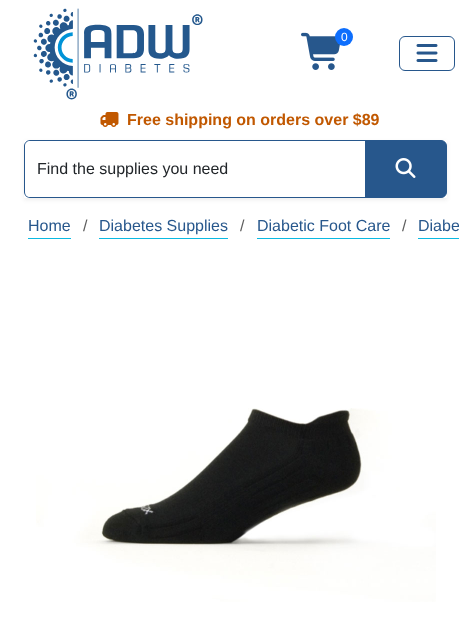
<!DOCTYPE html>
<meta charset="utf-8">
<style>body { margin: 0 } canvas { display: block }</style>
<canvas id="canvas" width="471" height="641"></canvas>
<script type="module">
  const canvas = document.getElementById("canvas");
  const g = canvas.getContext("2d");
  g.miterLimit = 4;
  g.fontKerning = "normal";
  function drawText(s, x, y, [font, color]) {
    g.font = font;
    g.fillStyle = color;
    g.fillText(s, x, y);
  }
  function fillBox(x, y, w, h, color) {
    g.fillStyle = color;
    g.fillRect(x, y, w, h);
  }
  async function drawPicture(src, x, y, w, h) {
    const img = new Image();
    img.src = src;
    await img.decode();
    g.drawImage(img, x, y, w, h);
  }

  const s1 = ["12px Liberation Sans", "#FFFFFF"];
  const s2 = ["bold 16px Liberation Sans", "#C15800"];
  const s3 = ["16px Liberation Sans", "#212529"];
  const s4 = ["16px Liberation Sans", "#27578C"];
  const s5 = ["16px Liberation Sans", "#5C5C5C"];

  fillBox(0, 0, 471, 641, "#FFFFFF");
  await drawPicture("pic1.png", 33, 8, 170, 92);
  await drawPicture("pic2.png", 301, 32, 39, 38);
  g.fillStyle = "#0D6EFD";
  g.beginPath();
  g.arc(344, 37, 9, 0, Math.PI * 2);
  g.fill();
  drawText("0", 341, 41, s1);
  g.beginPath();
  g.roundRect(399.5, 36.5, 55, 34, 5.5);
  g.strokeStyle = "#27578C";
  g.stroke();
  await drawPicture("pic3.png", 416, 44, 22, 18);
  await drawPicture("pic4.png", 100, 112, 19, 15);
  drawText("Free shipping on orders over $89", 127, 125, s2);
  g.save();
  g.beginPath();
  g.moveTo(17, 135);
  g.lineTo(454, 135);
  g.lineTo(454, 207);
  g.lineTo(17, 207);
  g.closePath();
  g.moveTo(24, 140);
  g.lineTo(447, 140);
  g.lineTo(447, 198);
  g.lineTo(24, 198);
  g.closePath();
  g.clip("evenodd");
  g.fillStyle = "rgba(0, 0, 0, 0.07)";
  g.filter = "blur(2px)";
  g.beginPath();
  g.rect(24, 142, 423, 58);
  g.fill();
  g.filter = "none";
  g.restore();
  g.fillStyle = "#27578C";
  g.beginPath();
  g.roundRect(364.5, 140.5, 82, 57, [0, 5.5, 5.5, 0]);
  g.fill();
  g.stroke();
  g.fillStyle = "#FFFFFF";
  g.beginPath();
  g.roundRect(25, 141, 340, 56, [5, 0, 0, 5]);
  g.fill();
  g.fillStyle = "#27578C";
  g.beginPath();
  g.moveTo(30, 140);
  g.lineTo(365, 140);
  g.lineTo(365, 198);
  g.lineTo(30, 198);
  g.bezierCurveTo(27, 198, 24, 195, 24, 192);
  g.lineTo(24, 146);
  g.bezierCurveTo(24, 143, 27, 140, 30, 140);
  g.closePath();
  g.moveTo(30, 141);
  g.lineTo(365, 141);
  g.lineTo(365, 197);
  g.lineTo(30, 197);
  g.bezierCurveTo(27, 197, 25, 195, 25, 192);
  g.lineTo(25, 146);
  g.bezierCurveTo(25, 143, 27, 141, 30, 141);
  g.closePath();
  g.fill("evenodd");
  drawText("Find the supplies you need", 37, 174, s3);
  await drawPicture("pic5.png", 395, 158, 21, 20);
  fillBox(28, 238, 43, 1, "#0AB9E2");
  drawText("Home", 28, 231, s4);
  drawText("/", 83, 231, s5);
  fillBox(99, 238, 129, 1, "#0AB9E2");
  drawText("Diabetes Supplies", 99, 231, s4);
  drawText("/", 240, 231, s5);
  fillBox(257, 238, 133, 1, "#0AB9E2");
  drawText("Diabetic Foot Care", 257, 231, s4);
  drawText("/", 402, 231, s5);
  fillBox(418, 238, 41, 1, "#0AB9E2");
  g.save();
  g.beginPath();
  g.rect(12, 198, 447, 57);
  g.clip();
  drawText("Diabe", 418, 231, s4);
  g.restore();
  await drawPicture("pic6.png", 36, 408, 400, 194);
</script>
